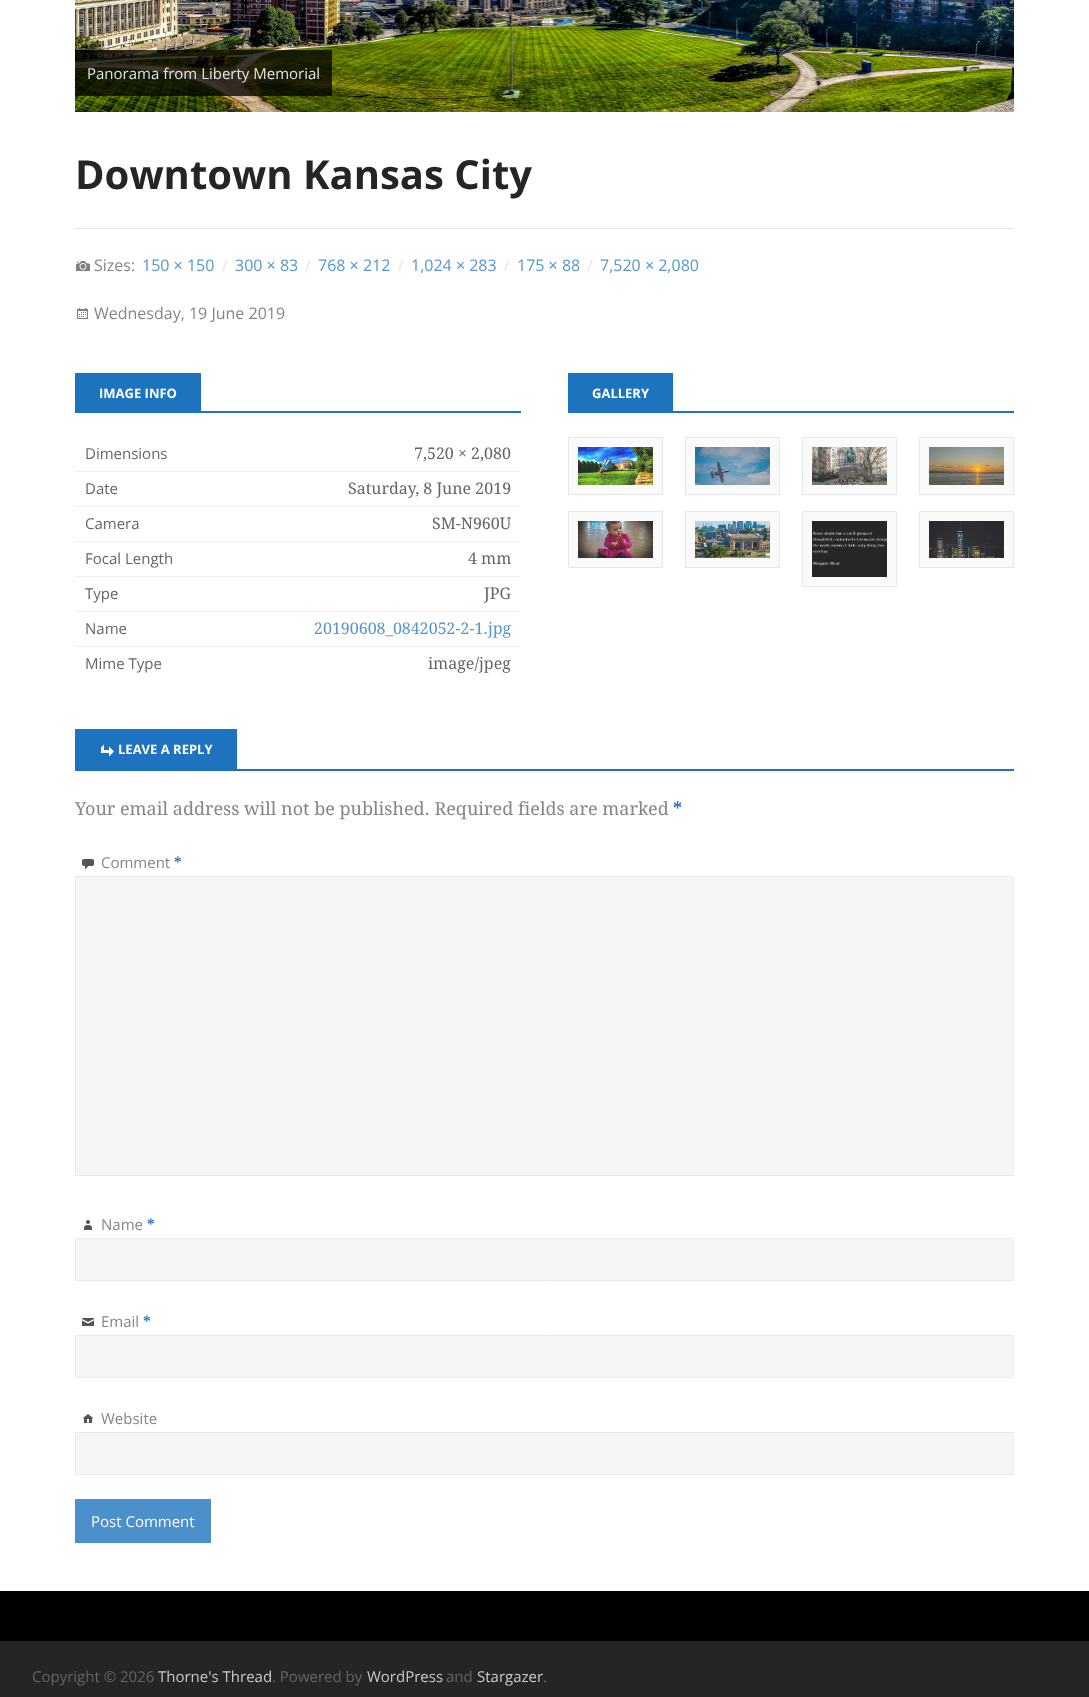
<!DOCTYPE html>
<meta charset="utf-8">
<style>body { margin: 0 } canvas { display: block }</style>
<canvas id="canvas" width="1089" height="1697"></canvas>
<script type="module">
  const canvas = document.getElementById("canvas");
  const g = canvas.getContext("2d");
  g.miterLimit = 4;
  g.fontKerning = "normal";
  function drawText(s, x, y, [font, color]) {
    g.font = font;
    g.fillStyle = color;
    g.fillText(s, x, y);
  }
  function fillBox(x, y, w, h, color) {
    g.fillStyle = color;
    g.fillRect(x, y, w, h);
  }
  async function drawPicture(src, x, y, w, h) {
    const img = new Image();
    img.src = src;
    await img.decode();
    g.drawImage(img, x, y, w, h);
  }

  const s1 = ["15px Open Sans", "#E3E3E3"];
  const s2 = ["bold 40px Open Sans", "#252525"];
  const s3 = ["16px Open Sans", "#858585"];
  const s4 = ["16px Open Sans", "#5696CE"];
  const s5 = ["16px Open Sans", "#E3E3E3"];
  const s6 = ["bold 13px Open Sans", "#FFFFFF"];
  const s7 = ["15px Open Sans", "#656565"];
  const s8 = ["16px Droid Serif", "#656565"];
  const s9 = ["16px Droid Serif", "#5696CE"];
  const s10 = ["18px Droid Serif", "#858585"];
  const s11 = ["bold 18px Droid Serif", "#1E73BE"];
  const s12 = ["15px Open Sans", "#858585"];
  const s13 = ["bold 15px Droid Serif", "#1E73BE"];
  const s14 = ["15px Open Sans", "#FFFFFF"];
  const s15 = ["15px Open Sans", "#C9C9C9"];

  fillBox(0, 0, 1089, 1697, "#000000");
  fillBox(0, 0, 1089, 1591, "#FFFFFF");
  await drawPicture("pic1.png", 75, 0, 939, 112);
  fillBox(75, 50, 257, 46, "rgba(0, 0, 0, 0.75)");
  drawText("Panorama from Liberty Memorial", 87, 79, s1);
  fillBox(75, 228, 939, 1, "#E3E3E3");
  drawText("Downtown Kansas City", 75, 189, s2);
  await drawPicture("pic2.png", 76, 261, 14, 10);
  drawText("Sizes:", 94, 271, s3);
  drawText("150 × 150", 142, 271, s4);
  drawText("/", 222, 271, s5);
  drawText("300 × 83", 235, 271, s4);
  drawText("/", 305, 271, s5);
  drawText("768 × 212", 318, 271, s4);
  drawText("/", 398, 271, s5);
  drawText("1,024 × 283", 411, 271, s4);
  drawText("/", 504, 271, s5);
  drawText("175 × 88", 517, 271, s4);
  drawText("/", 587, 271, s5);
  drawText("7,520 × 2,080", 600, 271, s4);
  await drawPicture("pic3.png", 77, 308, 11, 11);
  drawText("Wednesday, 19 June 2019", 94, 319, s3);
  fillBox(75, 411, 446, 2, "#1E73BE");
  fillBox(75, 373, 126, 38, "#1E73BE");
  drawText("IMAGE INFO", 99, 398, s6);
  g.beginPath();
  g.moveTo(75, 471.5);
  g.lineTo(521, 471.5);
  g.strokeStyle = "#E3E3E3";
  g.setLineDash([1, 1]);
  g.stroke();
  drawText("Dimensions", 85, 459, s7);
  drawText("7,520 × 2,080", 414, 459, s8);
  g.beginPath();
  g.moveTo(75, 506.5);
  g.lineTo(521, 506.5);
  g.stroke();
  drawText("Date", 85, 494, s7);
  drawText("Saturday, 8 June 2019", 348, 494, s8);
  g.beginPath();
  g.moveTo(75, 541.5);
  g.lineTo(521, 541.5);
  g.stroke();
  drawText("Camera", 85, 529, s7);
  drawText("SM-N960U", 432, 529, s8);
  g.beginPath();
  g.moveTo(75, 576.5);
  g.lineTo(521, 576.5);
  g.stroke();
  drawText("Focal Length", 85, 564, s7);
  drawText("4 mm", 468, 564, s8);
  g.beginPath();
  g.moveTo(75, 611.5);
  g.lineTo(521, 611.5);
  g.stroke();
  drawText("Type", 85, 599, s7);
  drawText("JPG", 484, 599, s8);
  g.beginPath();
  g.moveTo(75, 646.5);
  g.lineTo(521, 646.5);
  g.stroke();
  drawText("Name", 85, 634, s7);
  drawText("20190608_0842052-2-1.jpg", 314, 634, s9);
  drawText("Mime Type", 85, 669, s7);
  drawText("image/jpeg", 428, 669, s8);
  fillBox(568, 411, 446, 2, "#1E73BE");
  fillBox(568, 373, 105, 38, "#1E73BE");
  drawText("GALLERY", 592, 398, s6);
  g.fillStyle = "#FAFAFA";
  g.beginPath();
  g.rect(568.5, 437.5, 94, 57);
  g.fill();
  g.strokeStyle = "#E7E7E7";
  g.setLineDash([]);
  g.stroke();
  await drawPicture("pic4.png", 578, 447, 75, 38);
  g.beginPath();
  g.rect(685.5, 437.5, 94, 57);
  g.fill();
  g.stroke();
  await drawPicture("pic5.png", 695, 447, 75, 38);
  g.beginPath();
  g.rect(802.5, 437.5, 94, 57);
  g.fill();
  g.stroke();
  await drawPicture("pic6.png", 812, 447, 75, 38);
  g.beginPath();
  g.rect(919.5, 437.5, 94, 57);
  g.fill();
  g.stroke();
  await drawPicture("pic7.png", 929, 447, 75, 38);
  g.beginPath();
  g.rect(568.5, 511.5, 94, 56);
  g.fill();
  g.stroke();
  await drawPicture("pic8.png", 578, 521, 75, 37);
  g.beginPath();
  g.rect(685.5, 511.5, 94, 56);
  g.fill();
  g.stroke();
  await drawPicture("pic9.png", 695, 521, 75, 37);
  g.beginPath();
  g.rect(802.5, 511.5, 94, 75);
  g.fill();
  g.stroke();
  await drawPicture("pic10.png", 812, 521, 75, 56);
  g.beginPath();
  g.rect(919.5, 511.5, 94, 56);
  g.fill();
  g.stroke();
  await drawPicture("pic11.png", 929, 521, 75, 37);
  fillBox(75, 769, 939, 2, "#1E73BE");
  fillBox(75, 729, 162, 40, "#1E73BE");
  await drawPicture("pic12.png", 101, 744, 13, 13);
  drawText("LEAVE A REPLY", 118, 754, s6);
  drawText("Your email address will not be published. Required fields are marked", 75, 815, s10);
  drawText("*", 673, 815, s11);
  await drawPicture("pic13.png", 82, 859, 12, 11);
  drawText("Comment", 101, 868, s12);
  drawText("*", 174, 868, s13);
  g.fillStyle = "#F6F6F6";
  g.beginPath();
  g.rect(75.5, 876.5, 938, 299);
  g.fill();
  g.strokeStyle = "#EAEAEA";
  g.stroke();
  await drawPicture("pic14.png", 84, 1220, 8, 10);
  drawText("Name", 101, 1230, s12);
  drawText("*", 147, 1230, s13);
  g.fillStyle = "#F6F6F6";
  g.beginPath();
  g.rect(75.5, 1238.5, 938, 42);
  g.fill();
  g.stroke();
  await drawPicture("pic15.png", 82, 1318, 12, 8);
  drawText("Email", 101, 1327, s12);
  drawText("*", 143, 1327, s13);
  g.fillStyle = "#F6F6F6";
  g.beginPath();
  g.rect(75.5, 1335.5, 938, 42);
  g.fill();
  g.stroke();
  await drawPicture("pic16.png", 83, 1414, 10, 9);
  drawText("Website", 101, 1424, s12);
  g.fillStyle = "#F6F6F6";
  g.beginPath();
  g.rect(75.5, 1432.5, 938, 42);
  g.fill();
  g.stroke();
  fillBox(75, 1499, 136, 44, "#4B8FCB");
  drawText("Post Comment", 91, 1527, s14);
  fillBox(0, 1641, 1089, 56, "#252525");
  drawText("Copyright © 2026", 32, 1682, s7);
  drawText("Thorne's Thread", 158, 1682, s15);
  drawText(". Powered by", 272, 1682, s7);
  drawText("WordPress", 367, 1682, s15);
  drawText("and", 446, 1682, s7);
  drawText("Stargazer", 477, 1682, s15);
  drawText(".", 543, 1682, s7);
</script>
